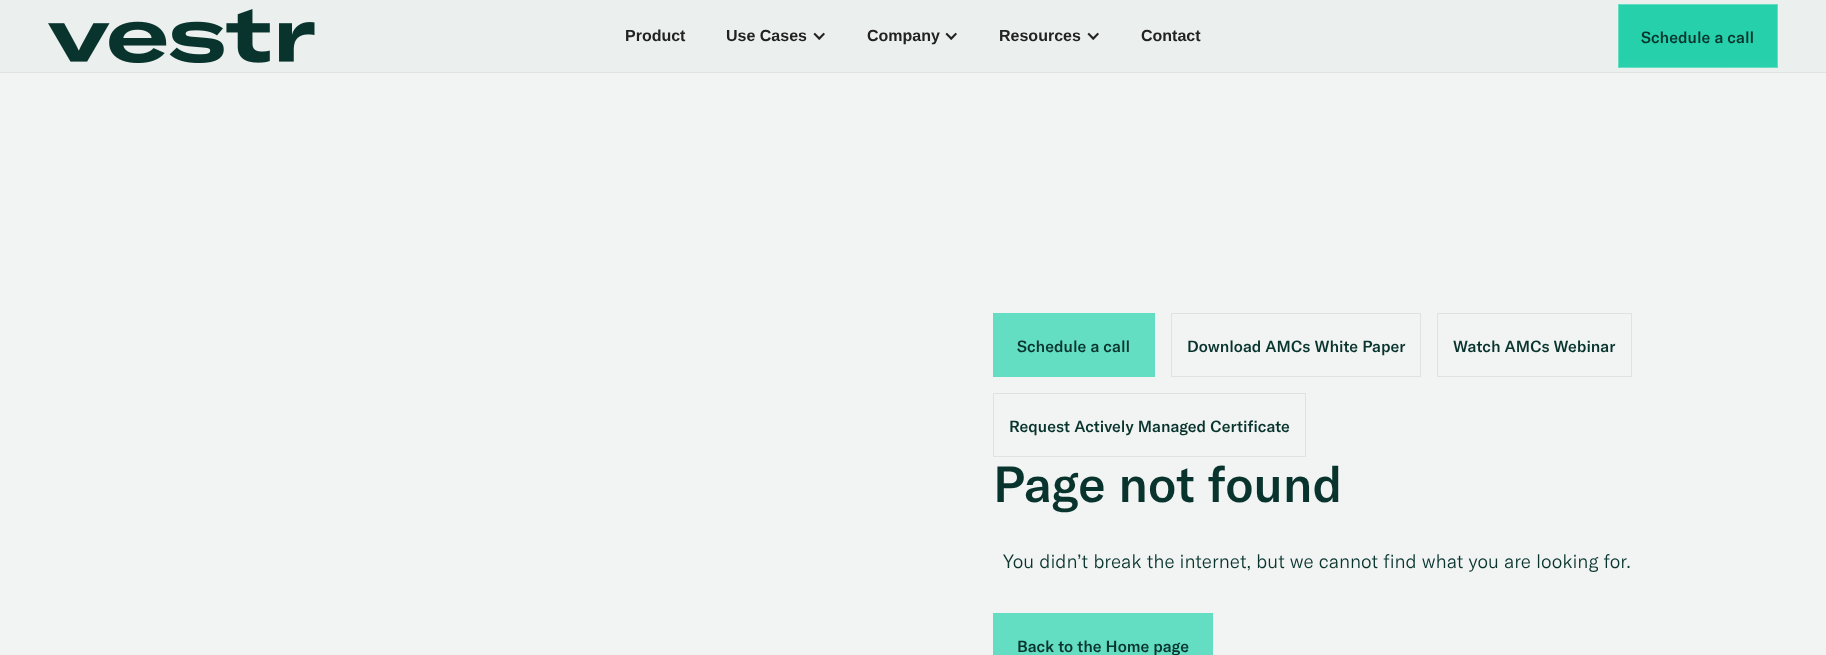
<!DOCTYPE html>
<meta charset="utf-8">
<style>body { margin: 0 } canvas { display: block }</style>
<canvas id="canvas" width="1826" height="655"></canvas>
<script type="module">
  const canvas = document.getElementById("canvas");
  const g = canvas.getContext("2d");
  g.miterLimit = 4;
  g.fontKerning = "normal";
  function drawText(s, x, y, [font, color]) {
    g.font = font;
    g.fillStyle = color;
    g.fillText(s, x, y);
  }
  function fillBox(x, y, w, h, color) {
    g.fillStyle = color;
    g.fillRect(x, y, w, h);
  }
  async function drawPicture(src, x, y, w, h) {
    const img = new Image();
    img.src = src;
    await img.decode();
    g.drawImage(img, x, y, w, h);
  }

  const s1 = ["bold 16px Liberation Sans", "#222222"];
  const s2 = ["500 16px GT America", "#09342E"];
  const s3 = ["500 50px GT America", "#09342E"];
  const s4 = ["300 19px GT America", "#09342E"];

  fillBox(0, 0, 1826, 655, "#F1F4F3");
  fillBox(0, 0, 1826, 72, "#EBEFED");
  fillBox(0, 72, 1826, 1, "#DEE3E0");
  await drawPicture("pic1.png", 48, 9, 267, 54);
  drawText("Product", 625, 41, s1);
  drawText("Use Cases", 726, 41, s1);
  await drawPicture("pic2.png", 813, 32, 12, 9);
  drawText("Company", 867, 41, s1);
  await drawPicture("pic2.png", 945, 32, 12, 9);
  drawText("Resources", 999, 41, s1);
  await drawPicture("pic2.png", 1087, 32, 12, 9);
  drawText("Contact", 1141, 41, s1);
  fillBox(1619, 5, 158, 62, "#25D0AB");
  await drawPicture("pic3.png", 1619, 60, 158, 8);
  fillBox(1618, 4, 160, 1, "#63DEC3");
  fillBox(1777, 4, 1, 64, "#63DEC3");
  fillBox(1618, 4, 1, 64, "#63DEC3");
  drawText("Schedule a call", 1641, 43, s2);
  fillBox(993, 313, 162, 64, "#63DEC3");
  drawText("Schedule a call", 1017, 352, s2);
  g.strokeStyle = "#DEE3E0";
  g.strokeRect(1171.5, 313.5, 249, 63);
  drawText("Download AMCs White Paper", 1187, 352, s2);
  g.strokeRect(1437.5, 313.5, 194, 63);
  drawText("Watch AMCs Webinar", 1453, 352, s2);
  g.strokeRect(993.5, 393.5, 312, 63);
  drawText("Request Actively Managed Certificate", 1009, 432, s2);
  drawText("Page not found", 993, 502, s3);
  drawText("You didn’t break the internet, but we cannot find what you are looking for.", 1003, 568, s4);
  fillBox(993, 613, 220, 42, "#63DEC3");
  drawText("Back to the Home page", 1017, 652, s2);
</script>
